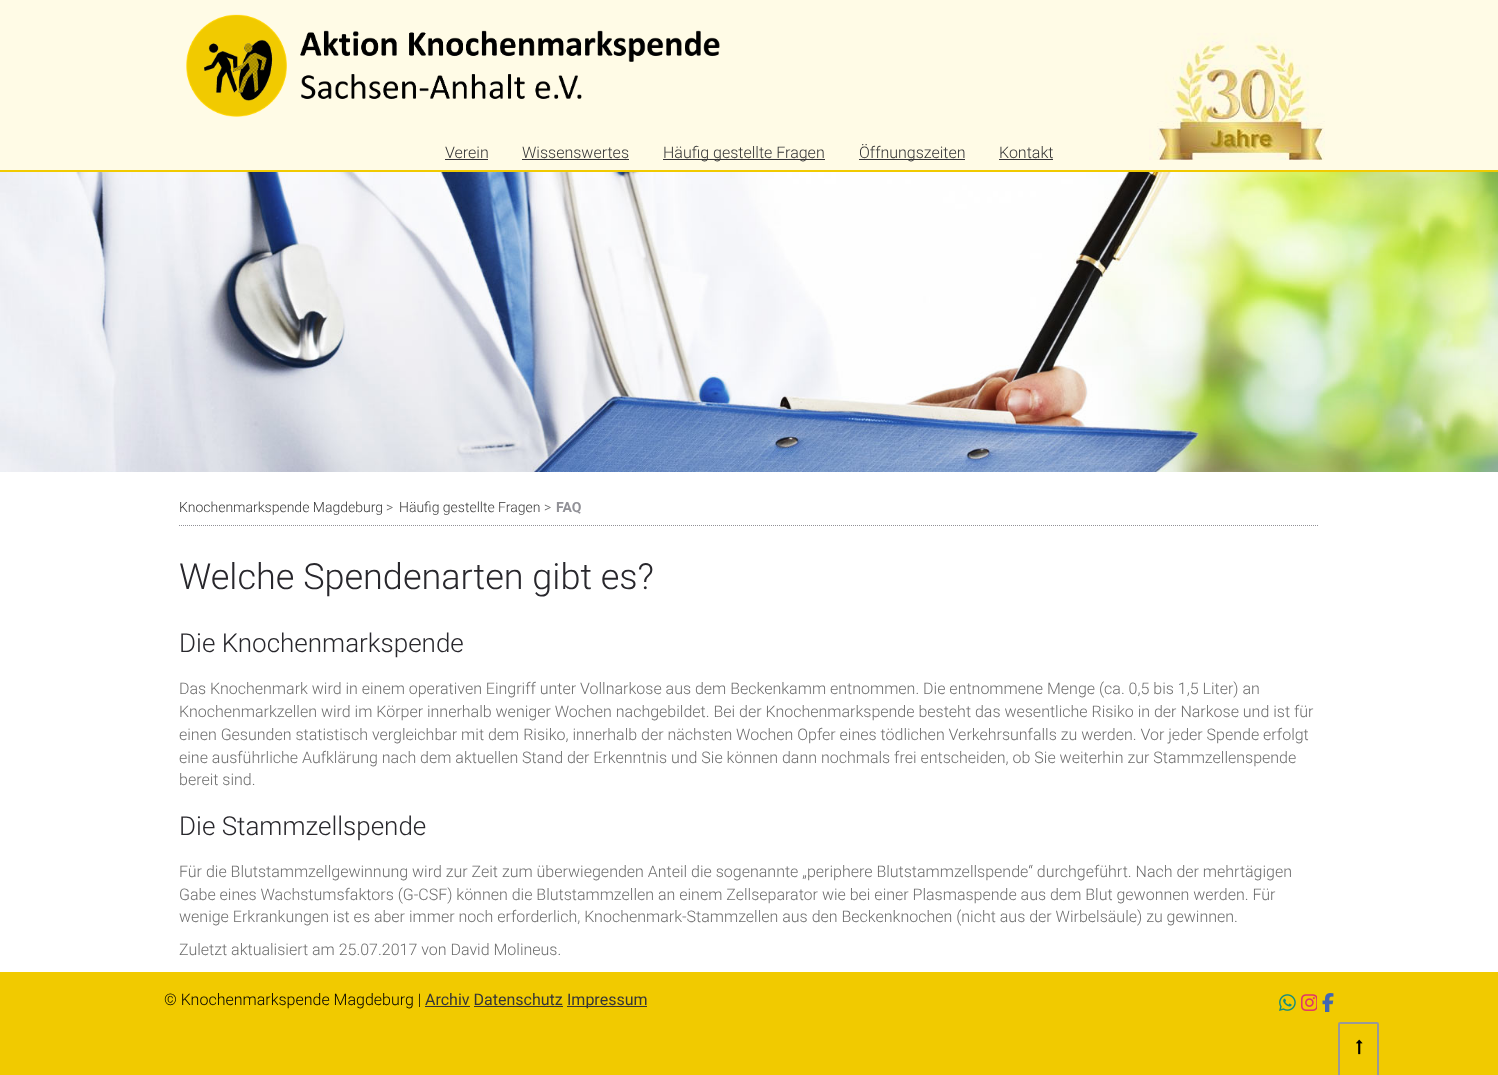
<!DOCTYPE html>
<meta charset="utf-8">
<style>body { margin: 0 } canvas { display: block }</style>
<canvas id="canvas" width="1498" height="1075"></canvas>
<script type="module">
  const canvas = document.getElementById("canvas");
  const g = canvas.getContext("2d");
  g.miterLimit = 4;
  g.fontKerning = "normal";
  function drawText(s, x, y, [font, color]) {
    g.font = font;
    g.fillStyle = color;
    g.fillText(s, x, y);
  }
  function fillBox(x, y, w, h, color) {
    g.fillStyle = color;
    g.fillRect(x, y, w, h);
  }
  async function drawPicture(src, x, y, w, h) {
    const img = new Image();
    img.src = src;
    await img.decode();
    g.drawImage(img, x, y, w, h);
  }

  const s1 = ["300 16px Roboto", "#353535"];
  const s2 = ["300 14px Roboto", "#353535"];
  const s3 = ["300 14px Roboto", "#666666"];
  const s4 = ["bold 14px Roboto", "#919197"];
  const s5 = ["300 36px Roboto", "#28272C"];
  const s6 = ["300 26px Roboto", "#28272C"];
  const s7 = ["300 16px Roboto", "#6E6E6E"];
  const s8 = ["300 16px Roboto", "#000000"];
  const s9 = ["16px Roboto", "#353535"];

  fillBox(0, 0, 1498, 1075, "#F1CA00");
  fillBox(0, 0, 1498, 170, "#FFFBE6");
  await drawPicture("pic1.png", 186, 14, 534, 103);
  await drawPicture("pic2.png", 1149, 33, 176, 127);
  drawText("Verein", 445, 158, s1);
  fillBox(445, 159, 43, 1, "#343338");
  drawText("Wissenswertes", 522, 158, s1);
  fillBox(522, 159, 107, 1, "#343338");
  fillBox(663, 159, 162, 1, "#343338");
  drawText("Häufig gestellte Fragen", 663, 158, s1);
  fillBox(859, 159, 106, 1, "#343338");
  drawText("Öffnungszeiten", 859, 158, s1);
  drawText("Kontakt", 999, 158, s1);
  fillBox(999, 159, 54, 1, "#343338");
  g.beginPath();
  g.roundRect(1339, 1023, 39, 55, 1);
  g.strokeStyle = "#999999";
  g.lineWidth = 2;
  g.stroke();
  await drawPicture("pic3.png", 1356, 1039, 7, 16);
  await drawPicture("pic4.png", 0, 172, 1498, 300);
  fillBox(0, 472, 1498, 500, "#FFFFFF");
  g.beginPath();
  g.moveTo(179, 525.5);
  g.lineTo(1319, 525.5);
  g.strokeStyle = "#919197";
  g.lineWidth = 1;
  g.setLineDash([1, 1]);
  g.stroke();
  drawText("Knochenmarkspende Magdeburg", 179, 512, s2);
  drawText(">", 386, 512, s3);
  drawText("Häufig gestellte Fragen", 399, 512, s2);
  drawText(">", 544, 512, s3);
  drawText("FAQ", 556, 512, s4);
  drawText("Welche Spendenarten gibt es?", 179, 589, s5);
  drawText("Die Knochenmarkspende", 179, 652, s6);
  drawText("Das Knochenmark wird in einem operativen Eingriff unter Vollnarkose aus dem Beckenkamm entnommen. Die entnommene Menge (ca. 0,5 bis 1,5 Liter) an", 179, 694, s7);
  drawText("Knochenmarkzellen wird im Körper innerhalb weniger Wochen nachgebildet. Bei der Knochenmarkspende besteht das wesentliche Risiko in der Narkose und ist für", 179, 717, s7);
  drawText("einen Gesunden statistisch vergleichbar mit dem Risiko, innerhalb der nächsten Wochen Opfer eines tödlichen Verkehrsunfalls zu werden. Vor jeder Spende erfolgt", 179, 740, s7);
  drawText("eine ausführliche Aufklärung nach dem aktuellen Stand der Erkenntnis und Sie können dann nochmals frei entscheiden, ob Sie weiterhin zur Stammzellenspende", 179, 763, s7);
  drawText("bereit sind.", 179, 785, s7);
  drawText("Die Stammzellspende", 179, 835, s6);
  drawText("Für die Blutstammzellgewinnung wird zur Zeit zum überwiegenden Anteil die sogenannte „periphere Blutstammzellspende“ durchgeführt. Nach der mehrtägigen", 179, 877, s7);
  drawText("Gabe eines Wachstumsfaktors (G-CSF) können die Blutstammzellen an einem Zellseparator wie bei einer Plasmaspende aus dem Blut gewonnen werden. Für", 179, 900, s7);
  drawText("wenige Erkrankungen ist es aber immer noch erforderlich, Knochenmark-Stammzellen aus den Beckenknochen (nicht aus der Wirbelsäule) zu gewinnen.", 179, 922, s7);
  drawText("Zuletzt aktualisiert am 25.07.2017 von David Molineus.", 179, 955, s7);
  drawText("© Knochenmarkspende Magdeburg |", 164, 1005, s8);
  drawText("Archiv Datenschutz", 425, 1005, s9);
  fillBox(425, 1006, 45, 1, "#353535");
  fillBox(567, 1006, 80, 1, "#353535");
  drawText("Impressum", 567, 1005, s9);
  fillBox(474, 1006, 89, 1, "#353535");
  await drawPicture("pic5.png", 1279, 994, 17, 17);
  await drawPicture("pic6.png", 1301, 994, 16, 17);
  await drawPicture("pic7.png", 1322, 993, 12, 19);
</script>
